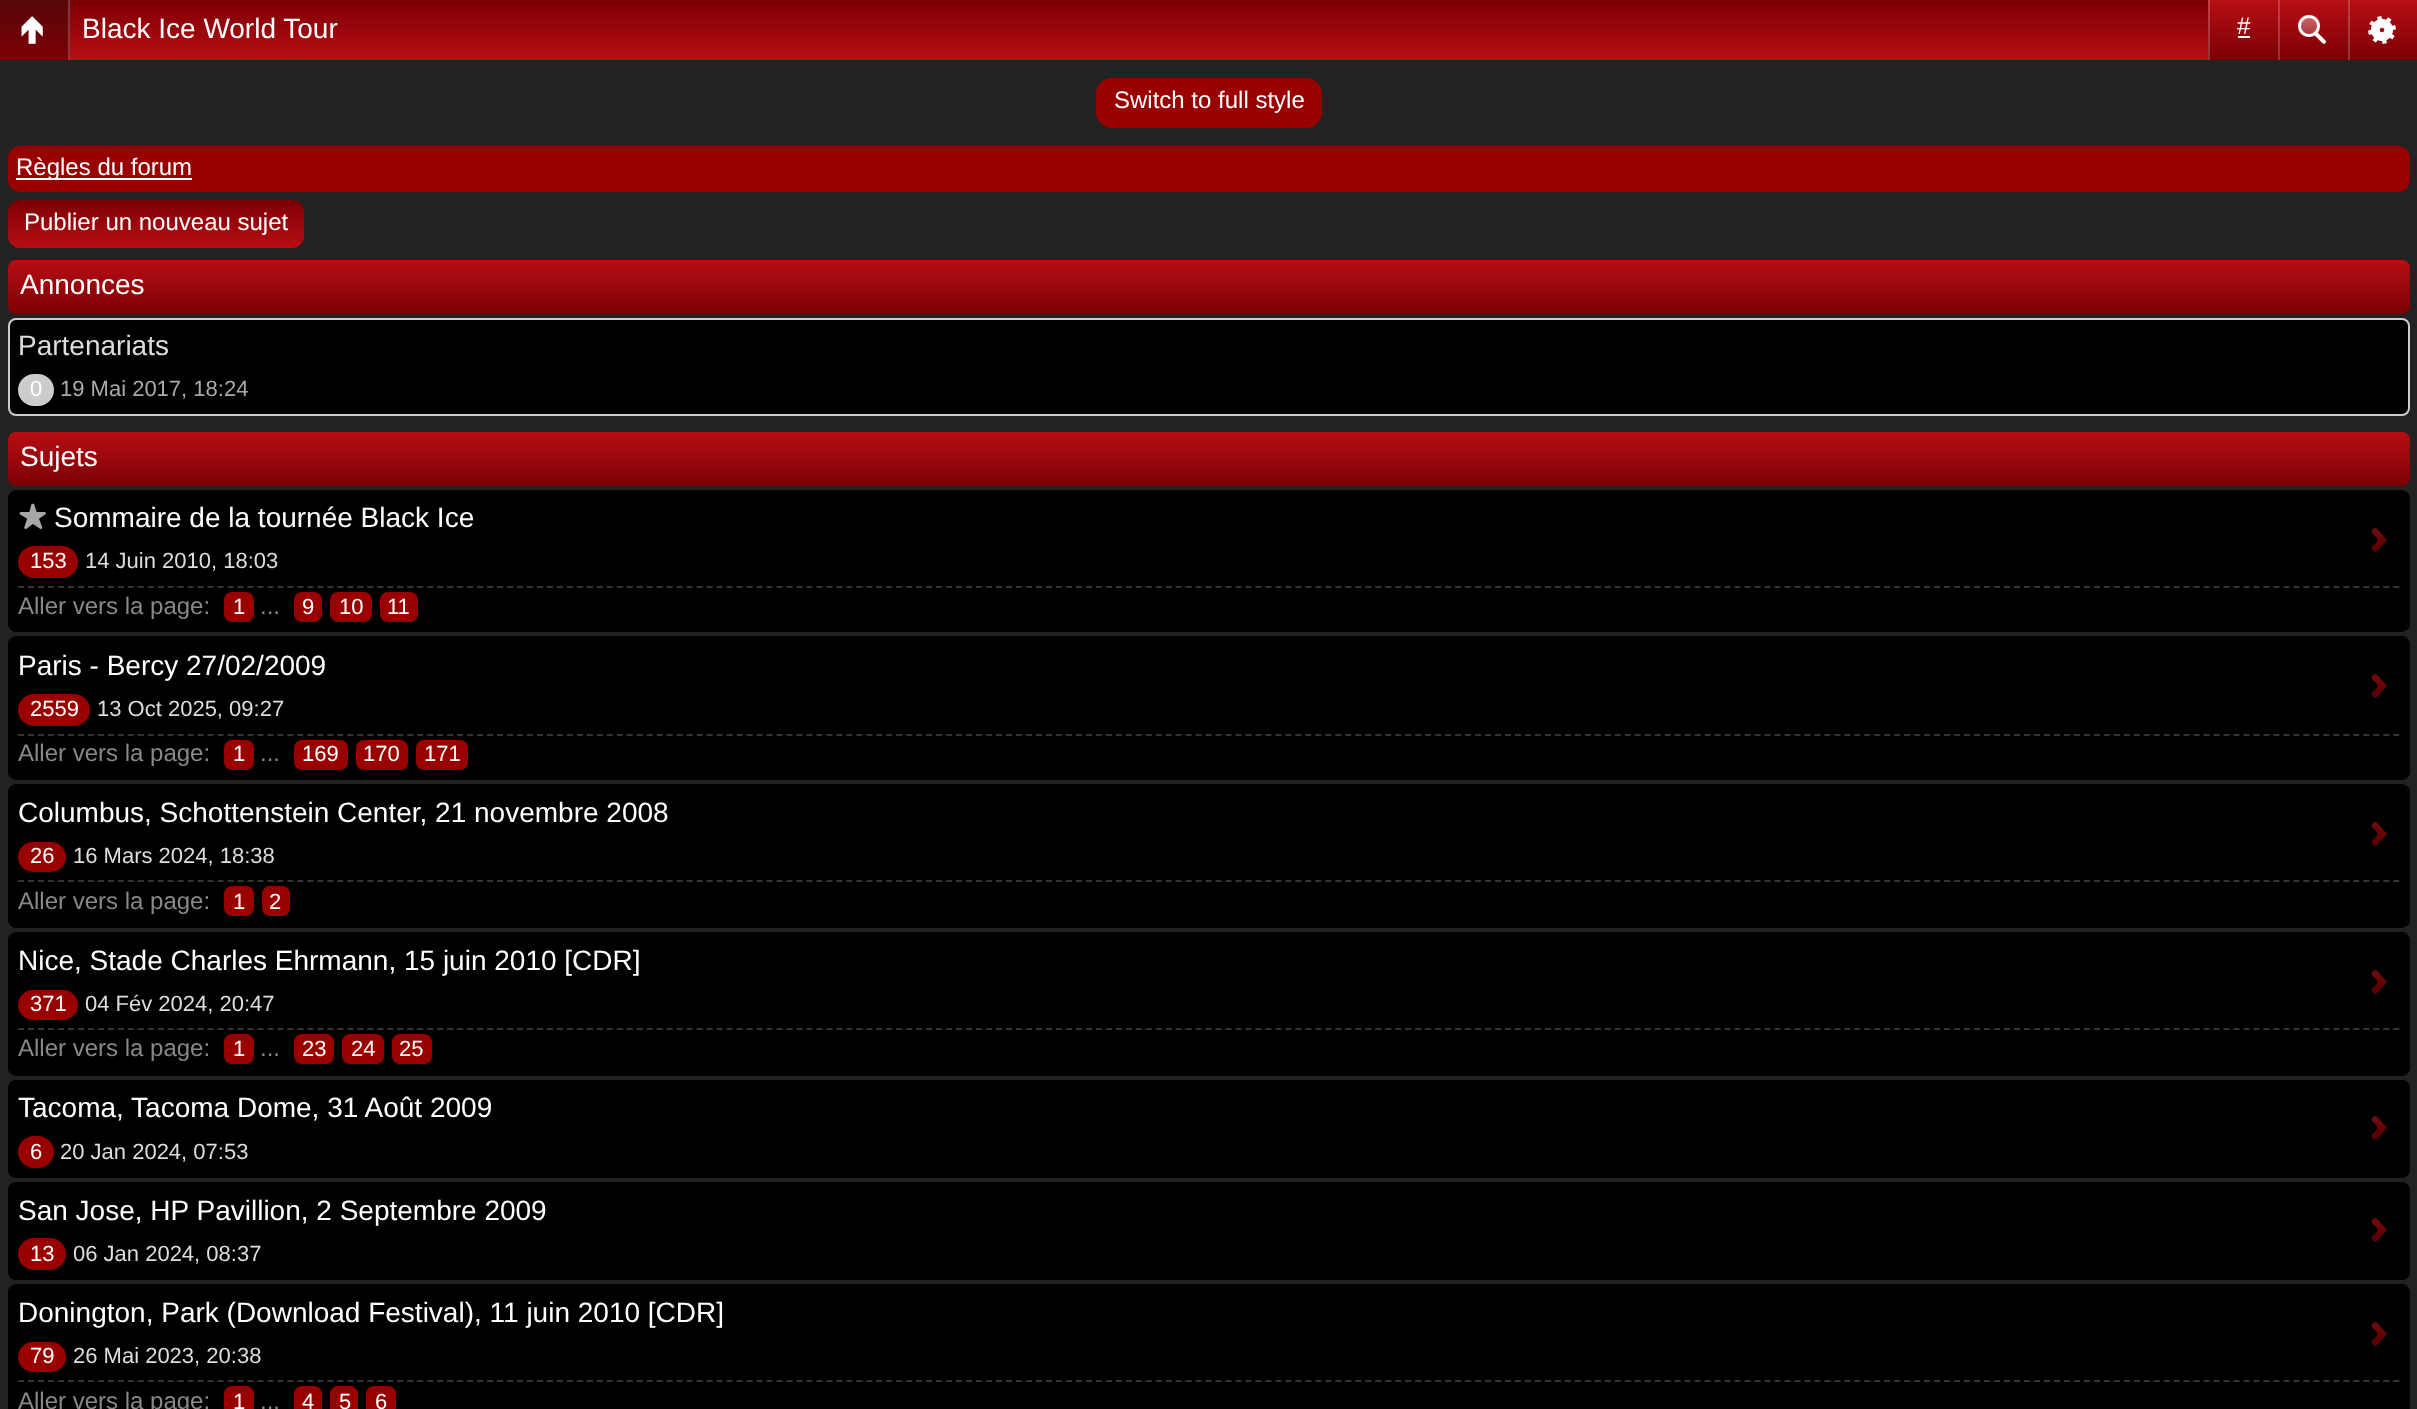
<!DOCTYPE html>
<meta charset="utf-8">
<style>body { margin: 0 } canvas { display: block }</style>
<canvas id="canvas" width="2417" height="1409"></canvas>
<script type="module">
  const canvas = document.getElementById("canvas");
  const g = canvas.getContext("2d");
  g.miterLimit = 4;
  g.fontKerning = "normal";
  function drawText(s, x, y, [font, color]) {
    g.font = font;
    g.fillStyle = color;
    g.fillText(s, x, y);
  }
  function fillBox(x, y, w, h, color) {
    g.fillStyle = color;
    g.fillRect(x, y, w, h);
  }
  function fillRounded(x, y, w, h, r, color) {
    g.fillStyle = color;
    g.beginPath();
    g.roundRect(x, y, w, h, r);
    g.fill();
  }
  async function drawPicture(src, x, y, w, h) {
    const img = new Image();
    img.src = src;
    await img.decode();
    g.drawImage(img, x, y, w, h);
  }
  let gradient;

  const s1 = ["28px Liberation Sans", "#FFFFFF"];
  const s2 = ["24px Liberation Sans", "#FFFFFF"];
  const s3 = ["28px Liberation Sans", "#DDDDDD"];
  const s4 = ["22px Liberation Sans", "#FFFFFF"];
  const s5 = ["22px Liberation Sans", "#AAAAAA"];
  const s6 = ["22px Liberation Sans", "#DDDDDD"];
  const s7 = ["24px Liberation Sans", "#888888"];

  fillBox(0, 0, 2417, 1409, "#222222");
  gradient = g.createLinearGradient(1209, 0, 1209, 60);
  gradient.addColorStop(0, "#7C0004");
  gradient.addColorStop(1, "#B70E14");
  g.fillStyle = gradient;
  g.fillRect(70, 0, 2138, 60);
  gradient = g.createLinearGradient(35, 0, 35, 60);
  gradient.addColorStop(0, "#57070A");
  gradient.addColorStop(1, "#7C0004");
  g.fillStyle = gradient;
  g.fillRect(0, 0, 68, 60);
  gradient = g.createLinearGradient(35, 0, 35, 60);
  gradient.addColorStop(0, "#79393B");
  gradient.addColorStop(1, "#963336");
  g.fillStyle = gradient;
  g.fillRect(68, 0, 2, 60);
  await drawPicture("pic1.png", 21, 16, 22, 28);
  drawText("Black Ice World Tour", 82, 38, s1);
  gradient = g.createLinearGradient(2243, 0, 2243, 60);
  gradient.addColorStop(0, "#B70E14");
  gradient.addColorStop(1, "#7B0004");
  g.fillStyle = gradient;
  g.fillRect(2210, 0, 68, 60);
  gradient = g.createLinearGradient(2243, 0, 2243, 60);
  gradient.addColorStop(0, "#C53E43");
  gradient.addColorStop(1, "#953336");
  g.fillStyle = gradient;
  g.fillRect(2208, 0, 2, 60);
  drawText("#", 2237, 34, s2);
  fillBox(2238, 36, 12, 2, "#FFFFFF");
  gradient = g.createLinearGradient(2313, 0, 2313, 60);
  gradient.addColorStop(0, "#B70E14");
  gradient.addColorStop(1, "#7B0004");
  g.fillStyle = gradient;
  g.fillRect(2280, 0, 68, 60);
  gradient = g.createLinearGradient(2313, 0, 2313, 60);
  gradient.addColorStop(0, "#C53E43");
  gradient.addColorStop(1, "#953336");
  g.fillStyle = gradient;
  g.fillRect(2278, 0, 2, 60);
  await drawPicture("pic2.png", 2298, 15, 28, 29);
  gradient = g.createLinearGradient(2383, 0, 2383, 60);
  gradient.addColorStop(0, "#B70E14");
  gradient.addColorStop(1, "#7B0004");
  g.fillStyle = gradient;
  g.fillRect(2350, 0, 67, 60);
  gradient = g.createLinearGradient(2383, 0, 2383, 60);
  gradient.addColorStop(0, "#C53E43");
  gradient.addColorStop(1, "#953336");
  g.fillStyle = gradient;
  g.fillRect(2348, 0, 2, 60);
  await drawPicture("pic3.png", 2368, 16, 28, 28);
  fillRounded(1096, 78, 226, 50, 16, "#990000");
  drawText("Switch to full style", 1114, 108, s2);
  fillRounded(8, 146, 2402, 46, 12, "#990000");
  fillBox(16, 178, 176, 2, "#FFFFFF");
  drawText("Règles du forum", 16, 175, s2);
  gradient = g.createLinearGradient(156, 200, 156, 248);
  gradient.addColorStop(0, "#7C0004");
  gradient.addColorStop(1, "#B70E14");
  g.fillStyle = gradient;
  g.beginPath();
  g.roundRect(8, 200, 296, 48, 12);
  g.fill();
  drawText("Publier un nouveau sujet", 24, 230, s2);
  gradient = g.createLinearGradient(1209, 260, 1209, 314);
  gradient.addColorStop(0, "#B70E14");
  gradient.addColorStop(1, "#7B0004");
  g.fillStyle = gradient;
  g.beginPath();
  g.roundRect(8, 260, 2402, 54, 8);
  g.fill();
  drawText("Annonces", 20, 294, s1);
  g.fillStyle = "#000000";
  g.beginPath();
  g.roundRect(9, 319, 2400, 96, 7);
  g.fill();
  g.strokeStyle = "#CCCCCC";
  g.lineWidth = 2;
  g.stroke();
  drawText("Partenariats", 18, 355, s3);
  fillRounded(18, 374, 36, 32, 16, "#CCCCCC");
  drawText("0", 30, 396, s4);
  drawText("19 Mai 2017, 18:24", 60, 396, s5);
  gradient = g.createLinearGradient(1209, 432, 1209, 486);
  gradient.addColorStop(0, "#B70E14");
  gradient.addColorStop(1, "#7B0004");
  g.fillStyle = gradient;
  g.beginPath();
  g.roundRect(8, 432, 2402, 54, 8);
  g.fill();
  drawText("Sujets", 20, 466, s1);
  g.fillStyle = "#000000";
  g.beginPath();
  g.roundRect(10, 492, 2398, 96, [6, 6, 0, 0]);
  g.fill();
  g.beginPath();
  g.moveTo(16, 490);
  g.lineTo(2402, 490);
  g.bezierCurveTo(2406, 490, 2410, 494, 2410, 498);
  g.lineTo(2410, 588);
  g.lineTo(8, 588);
  g.lineTo(8, 498);
  g.bezierCurveTo(8, 494, 12, 490, 16, 490);
  g.closePath();
  g.moveTo(16, 492);
  g.lineTo(2402, 492);
  g.bezierCurveTo(2405, 492, 2408, 495, 2408, 498);
  g.lineTo(2408, 588);
  g.lineTo(10, 588);
  g.lineTo(10, 498);
  g.bezierCurveTo(10, 495, 13, 492, 16, 492);
  g.closePath();
  g.fill("evenodd");
  await drawPicture("pic4.png", 19, 503, 27, 26);
  drawText("Sommaire de la tournée Black Ice", 54, 527, s1);
  await drawPicture("pic5.png", 2371, 528, 16, 24);
  g.beginPath();
  g.moveTo(18, 587);
  g.lineTo(2400, 587);
  g.strokeStyle = "#333333";
  g.setLineDash([6, 3.98]);
  g.stroke();
  fillRounded(18, 546, 60, 32, 16, "#990000");
  drawText("153", 30, 568, s4);
  drawText("14 Juin 2010, 18:03", 85, 568, s6);
  g.fillStyle = "#000000";
  g.beginPath();
  g.roundRect(10, 588, 2398, 42, [0, 0, 6, 6]);
  g.fill();
  g.beginPath();
  g.moveTo(8, 588);
  g.lineTo(2410, 588);
  g.lineTo(2410, 624);
  g.bezierCurveTo(2410, 628, 2406, 632, 2402, 632);
  g.lineTo(16, 632);
  g.bezierCurveTo(12, 632, 8, 628, 8, 624);
  g.closePath();
  g.moveTo(10, 588);
  g.lineTo(2408, 588);
  g.lineTo(2408, 624);
  g.bezierCurveTo(2408, 627, 2405, 630, 2402, 630);
  g.lineTo(16, 630);
  g.bezierCurveTo(13, 630, 10, 627, 10, 624);
  g.closePath();
  g.fill("evenodd");
  drawText("Aller vers la page:", 18, 614, s7);
  fillRounded(224, 592, 30, 30, 8, "#990000");
  drawText("1", 233, 614, s4);
  drawText("...", 260, 614, s7);
  fillRounded(294, 592, 28, 30, 8, "#990000");
  drawText("9", 302, 614, s4);
  fillRounded(330, 592, 42, 30, 8, "#990000");
  drawText("10", 339, 614, s4);
  fillRounded(380, 592, 38, 30, 8, "#990000");
  drawText("11", 387, 614, s4);
  g.fillStyle = "#000000";
  g.beginPath();
  g.roundRect(10, 638, 2398, 98, [6, 6, 0, 0]);
  g.fill();
  g.beginPath();
  g.moveTo(16, 636);
  g.lineTo(2402, 636);
  g.bezierCurveTo(2406, 636, 2410, 640, 2410, 644);
  g.lineTo(2410, 736);
  g.lineTo(8, 736);
  g.lineTo(8, 644);
  g.bezierCurveTo(8, 640, 12, 636, 16, 636);
  g.closePath();
  g.moveTo(16, 638);
  g.lineTo(2402, 638);
  g.bezierCurveTo(2405, 638, 2408, 641, 2408, 644);
  g.lineTo(2408, 736);
  g.lineTo(10, 736);
  g.lineTo(10, 644);
  g.bezierCurveTo(10, 641, 13, 638, 16, 638);
  g.closePath();
  g.fill("evenodd");
  drawText("Paris - Bercy 27/02/2009", 18, 675, s1);
  await drawPicture("pic5.png", 2371, 674, 16, 24);
  g.beginPath();
  g.moveTo(18, 735);
  g.lineTo(2400, 735);
  g.stroke();
  fillRounded(18, 694, 72, 32, 16, "#990000");
  drawText("2559", 30, 716, s4);
  drawText("13 Oct 2025, 09:27", 97, 716, s6);
  g.fillStyle = "#000000";
  g.beginPath();
  g.roundRect(10, 736, 2398, 42, [0, 0, 6, 6]);
  g.fill();
  g.beginPath();
  g.moveTo(8, 736);
  g.lineTo(2410, 736);
  g.lineTo(2410, 772);
  g.bezierCurveTo(2410, 776, 2406, 780, 2402, 780);
  g.lineTo(16, 780);
  g.bezierCurveTo(12, 780, 8, 776, 8, 772);
  g.closePath();
  g.moveTo(10, 736);
  g.lineTo(2408, 736);
  g.lineTo(2408, 772);
  g.bezierCurveTo(2408, 775, 2405, 778, 2402, 778);
  g.lineTo(16, 778);
  g.bezierCurveTo(13, 778, 10, 775, 10, 772);
  g.closePath();
  g.fill("evenodd");
  drawText("Aller vers la page:", 18, 761, s7);
  fillRounded(224, 740, 30, 30, 8, "#990000");
  drawText("1", 233, 761, s4);
  drawText("...", 260, 761, s7);
  fillRounded(294, 740, 54, 30, 8, "#990000");
  drawText("169", 302, 761, s4);
  fillRounded(356, 740, 52, 30, 8, "#990000");
  drawText("170", 363, 761, s4);
  fillRounded(416, 740, 52, 30, 8, "#990000");
  drawText("171", 424, 761, s4);
  g.fillStyle = "#000000";
  g.beginPath();
  g.roundRect(10, 786, 2398, 96, [6, 6, 0, 0]);
  g.fill();
  g.beginPath();
  g.moveTo(16, 784);
  g.lineTo(2402, 784);
  g.bezierCurveTo(2406, 784, 2410, 788, 2410, 792);
  g.lineTo(2410, 882);
  g.lineTo(8, 882);
  g.lineTo(8, 792);
  g.bezierCurveTo(8, 788, 12, 784, 16, 784);
  g.closePath();
  g.moveTo(16, 786);
  g.lineTo(2402, 786);
  g.bezierCurveTo(2405, 786, 2408, 789, 2408, 792);
  g.lineTo(2408, 882);
  g.lineTo(10, 882);
  g.lineTo(10, 792);
  g.bezierCurveTo(10, 789, 13, 786, 16, 786);
  g.closePath();
  g.fill("evenodd");
  drawText("Columbus, Schottenstein Center, 21 novembre 2008", 18, 822, s1);
  await drawPicture("pic5.png", 2371, 822, 16, 24);
  g.beginPath();
  g.moveTo(18, 881);
  g.lineTo(2400, 881);
  g.stroke();
  fillRounded(18, 842, 48, 30, 15, "#990000");
  drawText("26", 30, 863, s4);
  drawText("16 Mars 2024, 18:38", 73, 863, s6);
  g.fillStyle = "#000000";
  g.beginPath();
  g.roundRect(10, 882, 2398, 44, [0, 0, 6, 6]);
  g.fill();
  g.beginPath();
  g.moveTo(8, 882);
  g.lineTo(2410, 882);
  g.lineTo(2410, 920);
  g.bezierCurveTo(2410, 924, 2406, 928, 2402, 928);
  g.lineTo(16, 928);
  g.bezierCurveTo(12, 928, 8, 924, 8, 920);
  g.closePath();
  g.moveTo(10, 882);
  g.lineTo(2408, 882);
  g.lineTo(2408, 920);
  g.bezierCurveTo(2408, 923, 2405, 926, 2402, 926);
  g.lineTo(16, 926);
  g.bezierCurveTo(13, 926, 10, 923, 10, 920);
  g.closePath();
  g.fill("evenodd");
  drawText("Aller vers la page:", 18, 909, s7);
  fillRounded(224, 886, 30, 30, 8, "#990000");
  drawText("1", 233, 909, s4);
  fillRounded(262, 886, 28, 30, 8, "#990000");
  drawText("2", 269, 909, s4);
  g.fillStyle = "#000000";
  g.beginPath();
  g.roundRect(10, 934, 2398, 96, [6, 6, 0, 0]);
  g.fill();
  g.beginPath();
  g.moveTo(16, 932);
  g.lineTo(2402, 932);
  g.bezierCurveTo(2406, 932, 2410, 936, 2410, 940);
  g.lineTo(2410, 1030);
  g.lineTo(8, 1030);
  g.lineTo(8, 940);
  g.bezierCurveTo(8, 936, 12, 932, 16, 932);
  g.closePath();
  g.moveTo(16, 934);
  g.lineTo(2402, 934);
  g.bezierCurveTo(2405, 934, 2408, 937, 2408, 940);
  g.lineTo(2408, 1030);
  g.lineTo(10, 1030);
  g.lineTo(10, 940);
  g.bezierCurveTo(10, 937, 13, 934, 16, 934);
  g.closePath();
  g.fill("evenodd");
  drawText("Nice, Stade Charles Ehrmann, 15 juin 2010 [CDR]", 18, 970, s1);
  await drawPicture("pic5.png", 2371, 970, 16, 24);
  g.beginPath();
  g.moveTo(18, 1029);
  g.lineTo(2400, 1029);
  g.stroke();
  fillRounded(18, 990, 60, 30, 15, "#990000");
  drawText("371", 30, 1011, s4);
  drawText("04 Fév 2024, 20:47", 85, 1011, s6);
  g.fillStyle = "#000000";
  g.beginPath();
  g.roundRect(10, 1030, 2398, 44, [0, 0, 6, 6]);
  g.fill();
  g.beginPath();
  g.moveTo(8, 1030);
  g.lineTo(2410, 1030);
  g.lineTo(2410, 1068);
  g.bezierCurveTo(2410, 1072, 2406, 1076, 2402, 1076);
  g.lineTo(16, 1076);
  g.bezierCurveTo(12, 1076, 8, 1072, 8, 1068);
  g.closePath();
  g.moveTo(10, 1030);
  g.lineTo(2408, 1030);
  g.lineTo(2408, 1068);
  g.bezierCurveTo(2408, 1071, 2405, 1074, 2402, 1074);
  g.lineTo(16, 1074);
  g.bezierCurveTo(13, 1074, 10, 1071, 10, 1068);
  g.closePath();
  g.fill("evenodd");
  drawText("Aller vers la page:", 18, 1056, s7);
  fillRounded(224, 1034, 30, 30, 8, "#990000");
  drawText("1", 233, 1056, s4);
  drawText("...", 260, 1056, s7);
  fillRounded(294, 1034, 40, 30, 8, "#990000");
  drawText("23", 302, 1056, s4);
  fillRounded(342, 1034, 42, 30, 8, "#990000");
  drawText("24", 351, 1056, s4);
  fillRounded(392, 1034, 40, 30, 8, "#990000");
  drawText("25", 399, 1056, s4);
  g.fillStyle = "#000000";
  g.beginPath();
  g.roundRect(9, 1081, 2400, 96, 7);
  g.fill();
  g.strokeStyle = "#000000";
  g.setLineDash([]);
  g.stroke();
  drawText("Tacoma, Tacoma Dome, 31 Août 2009", 18, 1117, s1);
  await drawPicture("pic5.png", 2371, 1116, 16, 24);
  fillRounded(18, 1136, 36, 32, 16, "#990000");
  drawText("6", 30, 1159, s4);
  drawText("20 Jan 2024, 07:53", 60, 1159, s6);
  g.fillStyle = "#000000";
  g.beginPath();
  g.roundRect(9, 1183, 2400, 96, 7);
  g.fill();
  g.stroke();
  drawText("San Jose, HP Pavillion, 2 Septembre 2009", 18, 1220, s1);
  await drawPicture("pic5.png", 2371, 1218, 16, 24);
  fillRounded(18, 1238, 48, 32, 16, "#990000");
  drawText("13", 30, 1261, s4);
  drawText("06 Jan 2024, 08:37", 73, 1261, s6);
  g.fillStyle = "#000000";
  g.beginPath();
  g.roundRect(10, 1286, 2398, 96, [6, 6, 0, 0]);
  g.fill();
  g.beginPath();
  g.moveTo(16, 1284);
  g.lineTo(2402, 1284);
  g.bezierCurveTo(2406, 1284, 2410, 1288, 2410, 1292);
  g.lineTo(2410, 1382);
  g.lineTo(8, 1382);
  g.lineTo(8, 1292);
  g.bezierCurveTo(8, 1288, 12, 1284, 16, 1284);
  g.closePath();
  g.moveTo(16, 1286);
  g.lineTo(2402, 1286);
  g.bezierCurveTo(2405, 1286, 2408, 1289, 2408, 1292);
  g.lineTo(2408, 1382);
  g.lineTo(10, 1382);
  g.lineTo(10, 1292);
  g.bezierCurveTo(10, 1289, 13, 1286, 16, 1286);
  g.closePath();
  g.fill("evenodd");
  drawText("Donington, Park (Download Festival), 11 juin 2010 [CDR]", 18, 1322, s1);
  await drawPicture("pic5.png", 2371, 1322, 16, 24);
  g.beginPath();
  g.moveTo(18, 1381);
  g.lineTo(2400, 1381);
  g.strokeStyle = "#333333";
  g.setLineDash([6, 3.98]);
  g.stroke();
  fillRounded(18, 1342, 48, 30, 15, "#990000");
  drawText("79", 30, 1363, s4);
  drawText("26 Mai 2023, 20:38", 73, 1363, s6);
  fillBox(10, 1382, 2398, 27, "#000000");
  g.beginPath();
  g.moveTo(8, 1382);
  g.lineTo(2410, 1382);
  g.lineTo(2410, 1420);
  g.bezierCurveTo(2410, 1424, 2406, 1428, 2402, 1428);
  g.lineTo(16, 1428);
  g.bezierCurveTo(12, 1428, 8, 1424, 8, 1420);
  g.closePath();
  g.moveTo(10, 1382);
  g.lineTo(2408, 1382);
  g.lineTo(2408, 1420);
  g.bezierCurveTo(2408, 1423, 2405, 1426, 2402, 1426);
  g.lineTo(16, 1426);
  g.bezierCurveTo(13, 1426, 10, 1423, 10, 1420);
  g.closePath();
  g.fill("evenodd");
  drawText("Aller vers la page:", 18, 1409, s7);
  fillRounded(224, 1386, 30, 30, 8, "#990000");
  drawText("1", 233, 1409, s4);
  drawText("...", 260, 1409, s7);
  fillRounded(294, 1386, 28, 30, 8, "#990000");
  drawText("4", 302, 1409, s4);
  fillRounded(330, 1386, 28, 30, 8, "#990000");
  drawText("5", 339, 1409, s4);
  fillRounded(366, 1386, 30, 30, 8, "#990000");
  drawText("6", 375, 1409, s4);
</script>
